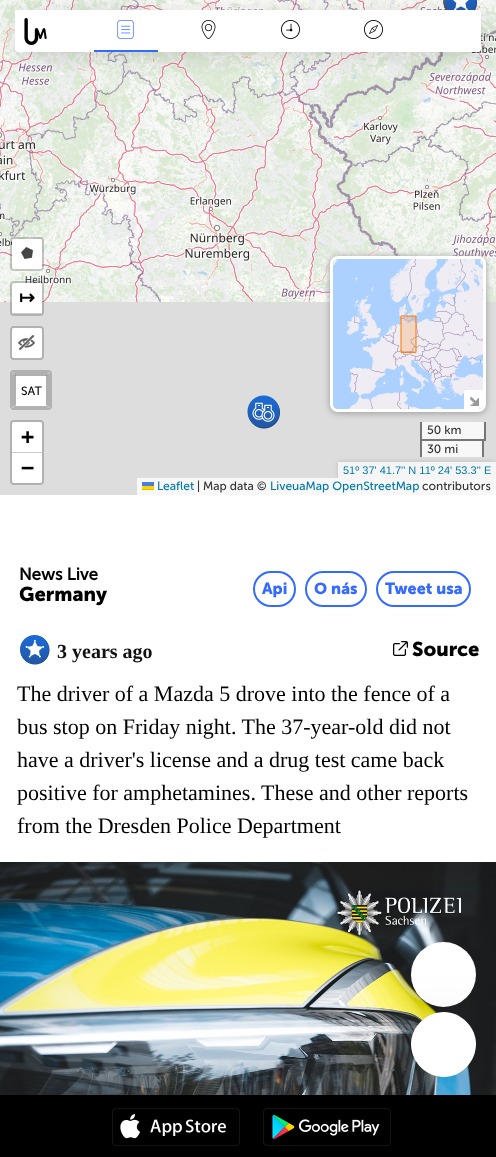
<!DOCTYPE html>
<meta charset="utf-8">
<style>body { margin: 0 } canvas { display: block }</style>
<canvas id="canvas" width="496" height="1157"></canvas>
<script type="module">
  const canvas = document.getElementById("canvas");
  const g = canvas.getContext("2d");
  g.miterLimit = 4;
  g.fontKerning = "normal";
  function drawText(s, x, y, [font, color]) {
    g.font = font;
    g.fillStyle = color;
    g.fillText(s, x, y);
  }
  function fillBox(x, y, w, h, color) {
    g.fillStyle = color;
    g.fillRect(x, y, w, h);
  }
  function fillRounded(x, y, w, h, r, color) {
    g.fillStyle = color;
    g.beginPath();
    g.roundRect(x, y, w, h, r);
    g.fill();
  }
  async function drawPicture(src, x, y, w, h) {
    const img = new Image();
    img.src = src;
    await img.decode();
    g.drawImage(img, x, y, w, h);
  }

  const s1 = ["bold 19px DejaVu Sans", "#000000"];
  const s2 = ["12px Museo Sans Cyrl", "#000000"];
  const s3 = ["bold 22px DejaVu Sans Mono", "#000000"];
  const s4 = ["12px Museo Sans Cyrl", "#333333"];
  const s5 = ["11px Liberation Sans", "#0078A8"];
  const s6 = ["12px Museo Sans Cyrl", "#0078A8"];
  const s7 = ["bold 17px Museo Sans Cyrl", "#000000"];
  const s8 = ["bold 20px 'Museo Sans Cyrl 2'", "#000000"];
  const s9 = ["bold 16px 'Museo Sans Cyrl 2'", "#346AFE"];
  const s10 = ["bold 20px Liberation Serif", "#111111"];
  const s11 = ["22px Liberation Serif", "#000000"];

  fillBox(0, 0, 496, 1157, "#FFFFFF");
  await drawPicture("pic6.png", 0, 0, 233, 46);
  await drawPicture("pic7.png", 233, 0, 256, 46);
  await drawPicture("pic8.png", 489, 0, 7, 46);
  await drawPicture("pic9.png", 0, 46, 233, 256);
  await drawPicture("pic10.png", 233, 46, 256, 256);
  await drawPicture("pic11.png", 489, 46, 7, 256);
  await drawPicture("pic12.png", 443, 0, 3, 10);
  await drawPicture("pic13.png", 443, 0, 3, 10);
  await drawPicture("pic14.png", 443, 0, 4, 10);
  await drawPicture("pic15.png", 444, 0, 33, 10);
  g.fillStyle = "rgba(16, 15, 15, 0.14)";
  g.filter = "blur(11px)";
  g.beginPath();
  g.roundRect(18, 14, 466, 42, 3);
  g.fill();
  g.filter = "none";
  fillRounded(15, 10, 466, 42, 3, "#FFFFFF");
  await drawPicture("pic1.png", 24, 18, 23, 27);
  fillBox(94, 50, 64, 2, "#346AFE");
  await drawPicture("pic2.png", 117, 20, 17, 19);
  await drawPicture("pic3.png", 201, 20, 15, 19);
  await drawPicture("pic4.png", 281, 20, 19, 19);
  await drawPicture("pic5.png", 364, 20, 19, 19);
  fillBox(0, 302, 496, 193, "#DDDDDD");
  fillBox(422, 441, 60, 16, "#F8F8F8");
  await drawPicture("pic16.png", 247, 395, 33, 34);
  g.beginPath();
  g.roundRect(11, 238, 32, 32, 3);
  g.strokeStyle = "rgba(0, 0, 0, 0.2)";
  g.lineWidth = 2;
  g.stroke();
  fillRounded(12, 239, 30, 30, 2, "#FFFFFF");
  await drawPicture("pic17.png", 21, 247, 12, 12);
  g.beginPath();
  g.roundRect(11, 282, 32, 33, 3);
  g.stroke();
  g.beginPath();
  g.roundRect(12, 283, 30, 31, [2, 2, 0, 0]);
  g.fill();
  fillBox(12, 313, 30, 1, "#CCCCCC");
  drawText("↦", 19, 304, s1);
  g.beginPath();
  g.roundRect(11, 327, 32, 32, 3);
  g.strokeStyle = "#B1B1B1";
  g.stroke();
  fillRounded(12, 328, 30, 30, 2, "#FFFFFF");
  await drawPicture("pic18.png", 18, 335, 17, 15);
  g.beginPath();
  g.roundRect(11, 371, 40, 38, 3);
  g.stroke();
  g.beginPath();
  g.roundRect(13, 373, 36, 34, 3);
  g.stroke();
  g.beginPath();
  g.moveTo(16, 376);
  g.lineTo(46, 376);
  g.lineTo(46, 406);
  g.lineTo(16, 406);
  g.lineTo(16, 404);
  g.closePath();
  g.fill();
  fillBox(15, 374, 32, 2, "rgba(0, 0, 0, 0.2)");
  fillBox(46, 375, 2, 30, "rgba(0, 0, 0, 0.2)");
  fillBox(14, 375, 2, 30, "rgba(0, 0, 0, 0.2)");
  drawText("SAT", 21, 395, s2);
  g.beginPath();
  g.roundRect(11, 421, 32, 63, 3);
  g.stroke();
  g.fillStyle = "#FFFFFF";
  g.beginPath();
  g.roundRect(12, 422, 30, 31, [2, 2, 0, 0]);
  g.fill();
  fillBox(12, 452, 30, 1, "#CCCCCC");
  drawText("+", 21, 444, s3);
  g.fillStyle = "#FFFFFF";
  g.beginPath();
  g.roundRect(12, 453, 30, 30, [0, 0, 2, 2]);
  g.fill();
  drawText("−", 21, 475, s3);
  g.fillStyle = "#999999";
  g.filter = "blur(3.5px)";
  g.beginPath();
  g.roundRect(330, 257, 156, 156, 8);
  g.fill();
  g.filter = "none";
  g.beginPath();
  g.roundRect(331.5, 257.5, 153, 153, 6.5);
  g.strokeStyle = "#FFFFFF";
  g.lineWidth = 3;
  g.stroke();
  await drawPicture("pic19.png", 333, 259, 43, 150);
  await drawPicture("pic20.png", 376, 259, 107, 150);
  fillBox(401, 316, 15, 36, "rgba(255, 120, 0, 0.2)");
  g.beginPath();
  g.moveTo(401, 352);
  g.lineTo(401, 316);
  g.lineTo(416, 316);
  g.lineTo(416, 352);
  g.closePath();
  g.strokeStyle = "#FF7800";
  g.lineWidth = 1;
  g.lineCap = "round";
  g.lineJoin = "round";
  g.stroke();
  g.fillStyle = "#FFFFFF";
  g.beginPath();
  g.roundRect(464, 390, 19, 19, [2, 0, 5, 0]);
  g.fill();
  await drawPicture("pic21.png", 470, 396, 9, 10);
  fillBox(422, 422, 62, 17, "#F8F8F8");
  fillBox(484, 422, 2, 19, "#777777");
  fillBox(420, 422, 2, 19, "#777777");
  drawText("50 km", 427, 434, s4);
  fillBox(420, 439, 64, 2, "#777777");
  fillBox(482, 439, 2, 18, "#777777");
  fillBox(420, 439, 2, 18, "#777777");
  drawText("30 mi", 427, 453, s4);
  g.fillStyle = "#BBBBBB";
  g.filter = "blur(2.5px)";
  g.beginPath();
  g.rect(338, 462, 158, 16);
  g.fill();
  g.filter = "none";
  fillBox(338, 462, 158, 16, "#F5F5F5");
  drawText("51º 37' 41.7'' N 11º 24' 53.3'' E", 343, 474, s5);
  fillBox(137, 478, 359, 17, "rgba(255, 255, 255, 0.8)");
  drawText("Leaflet", 157, 490, s6);
  fillBox(142, 482, 12, 4, "#4C7BE1");
  fillBox(142, 486, 12, 3, "#FFD500");
  fillBox(142, 489, 12, 1, "#E0BC00");
  drawText("| Map data ©", 197, 490, s4);
  drawText("LiveuaMap OpenStreetMap", 270, 490, s6);
  drawText("contributors", 422, 490, s4);
  drawText("News Live", 19, 580, s7);
  drawText("Germany", 19, 601, s8);
  g.beginPath();
  g.roundRect(254, 572, 41, 34, 17);
  g.strokeStyle = "#346AFE";
  g.lineWidth = 2;
  g.lineJoin = "miter";
  g.stroke();
  drawText("Api", 262, 594, s9);
  g.beginPath();
  g.roundRect(306, 572, 60, 34, 17);
  g.stroke();
  drawText("O nás", 314, 594, s9);
  g.beginPath();
  g.roundRect(377, 572, 93, 34, 17);
  g.stroke();
  drawText("Tweet usa", 385, 594, s9);
  await drawPicture("pic22.png", 20, 635, 30, 30);
  drawText("3 years ago", 57, 658, s10);
  await drawPicture("pic23.png", 393, 641, 15, 15);
  drawText("Source", 412, 656, s8);
  drawText("The driver of a Mazda 5 drove into the fence of a", 17, 701, s11);
  drawText("bus stop on Friday night. The 37-year-old did not", 17, 734, s11);
  drawText("have a driver's license and a drug test came back", 17, 767, s11);
  drawText("positive for amphetamines. These and other reports", 17, 800, s11);
  drawText("from the Dresden Police Department", 17, 833, s11);
  await drawPicture("pic24.png", 0, 862, 496, 233);
  fillBox(0, 1095, 496, 62, "#000000");
  await drawPicture("pic25.png", 112, 1108, 128, 38);
  await drawPicture("pic26.png", 263, 1108, 128, 38);
  g.fillStyle = "#FFFFFF";
  g.beginPath();
  g.arc(443.5, 974.5, 32.5, 0, Math.PI * 2);
  g.fill();
  g.fillStyle = "rgba(16, 15, 15, 0.14)";
  g.filter = "blur(32.5px)";
  g.beginPath();
  g.roundRect(413, 1029, 61, 61, 30.5);
  g.fill();
  g.filter = "none";
  g.fillStyle = "#FFFFFF";
  g.beginPath();
  g.moveTo(444, 1077);
  g.bezierCurveTo(426, 1077, 411, 1062, 411, 1044);
  g.bezierCurveTo(411, 1027, 426, 1012, 444, 1012);
  g.bezierCurveTo(461, 1012, 476, 1027, 476, 1044);
  g.bezierCurveTo(476, 1062, 461, 1077, 444, 1077);
  g.closePath();
  g.fill();
</script>
